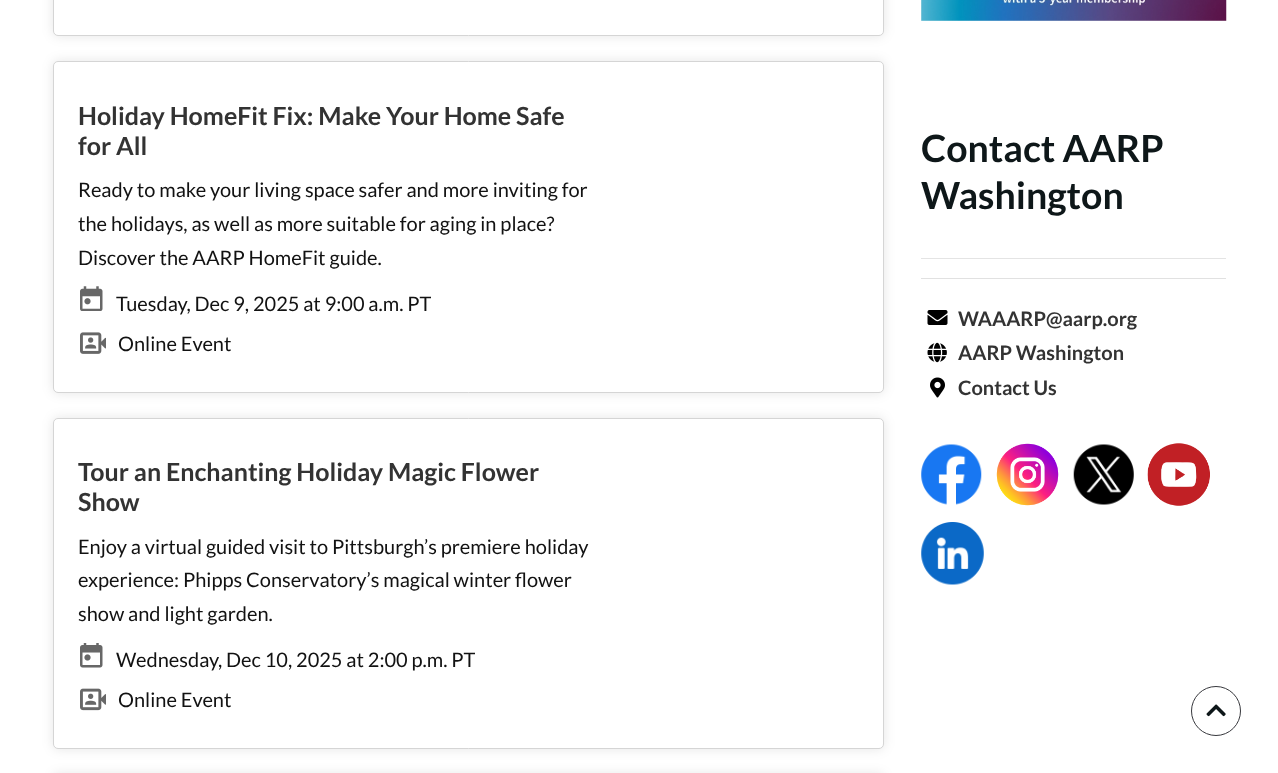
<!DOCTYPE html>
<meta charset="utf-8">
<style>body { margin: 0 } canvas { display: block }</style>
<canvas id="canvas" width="1278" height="773"></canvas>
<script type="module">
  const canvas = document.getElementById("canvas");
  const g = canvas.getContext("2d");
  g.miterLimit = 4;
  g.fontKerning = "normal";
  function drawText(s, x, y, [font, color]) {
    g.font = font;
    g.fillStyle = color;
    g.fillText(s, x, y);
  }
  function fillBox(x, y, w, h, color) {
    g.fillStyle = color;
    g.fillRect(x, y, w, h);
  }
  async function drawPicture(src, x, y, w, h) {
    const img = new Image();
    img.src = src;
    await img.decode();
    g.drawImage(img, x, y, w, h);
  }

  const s1 = ["bold 25px Lato", "#333333"];
  const s2 = ["20px Lato", "#121212"];
  const s3 = ["bold 37.5px Lato", "#0E1719"];
  const s4 = ["bold 20px Lato", "#333333"];

  fillBox(0, 0, 1278, 773, "#FFFFFF");
  g.fillStyle = "rgba(0, 0, 0, 0.1)";
  g.filter = "blur(6px)";
  g.beginPath();
  g.roundRect(53, -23, 831, 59, 5);
  g.fill();
  g.filter = "none";
  g.fillStyle = "#FFFFFF";
  g.beginPath();
  g.roundRect(53.5, -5.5, 830, 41, 4.5);
  g.fill();
  g.strokeStyle = "#D5D5D5";
  g.stroke();
  g.fillStyle = "rgba(0, 0, 0, 0.1)";
  g.filter = "blur(6px)";
  g.beginPath();
  g.roundRect(53, 61, 831, 332, 5);
  g.fill();
  g.filter = "none";
  g.fillStyle = "#FFFFFF";
  g.beginPath();
  g.roundRect(53.5, 61.5, 830, 331, 4.5);
  g.fill();
  g.stroke();
  drawText("Holiday HomeFit Fix: Make Your Home Safe", 78, 125, s1);
  drawText("for All", 78, 155, s1);
  drawText("Ready to make your living space safer and more inviting for", 78, 197, s2);
  drawText("the holidays, as well as more suitable for aging in place?", 78, 231, s2);
  drawText("Discover the AARP HomeFit guide.", 78, 265, s2);
  await drawPicture("pic1.png", 80, 286, 23, 25);
  drawText("Tuesday, Dec 9, 2025 at 9:00 a.m. PT", 116, 311, s2);
  await drawPicture("pic2.png", 80, 332, 26, 22);
  drawText("Online Event", 118, 351, s2);
  g.fillStyle = "rgba(0, 0, 0, 0.1)";
  g.filter = "blur(6px)";
  g.beginPath();
  g.roundRect(53, 418, 831, 331, 5);
  g.fill();
  g.filter = "none";
  g.fillStyle = "#FFFFFF";
  g.beginPath();
  g.roundRect(53.5, 418.5, 830, 330, 4.5);
  g.fill();
  g.stroke();
  drawText("Tour an Enchanting Holiday Magic Flower", 78, 481, s1);
  drawText("Show", 78, 511, s1);
  drawText("Enjoy a virtual guided visit to Pittsburgh’s premiere holiday", 78, 554, s2);
  drawText("experience: Phipps Conservatory’s magical winter flower", 78, 587, s2);
  drawText("show and light garden.", 78, 621, s2);
  await drawPicture("pic3.png", 80, 643, 23, 25);
  drawText("Wednesday, Dec 10, 2025 at 2:00 p.m. PT", 116, 667, s2);
  await drawPicture("pic4.png", 80, 688, 26, 23);
  drawText("Online Event", 118, 707, s2);
  g.fillStyle = "rgba(0, 0, 0, 0.1)";
  g.filter = "blur(6px)";
  g.beginPath();
  g.roundRect(53, 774, 831, 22, 5);
  g.fill();
  g.filter = "none";
  fillBox(921, 0, 305, 21, "#F1F0EC");
  await drawPicture("pic5.png", 921, 0, 306, 21);
  fillBox(921, 258, 305, 1, "#E4E4E4");
  drawText("Contact AARP", 921, 162, s3);
  drawText("Washington", 921, 209, s3);
  fillBox(921, 278, 305, 1, "#E1E1E1");
  await drawPicture("pic6.png", 927, 310, 21, 15);
  drawText("WAAARP@aarp.org", 958, 326, s4);
  await drawPicture("pic7.png", 927, 342, 20, 21);
  drawText("AARP Washington", 958, 360, s4);
  await drawPicture("pic8.png", 930, 377, 15, 21);
  drawText("Contact Us", 958, 395, s4);
  await drawPicture("pic9.png", 921, 444, 61, 61);
  await drawPicture("pic10.png", 996, 443, 63, 63);
  await drawPicture("pic11.png", 1073, 444, 61, 61);
  await drawPicture("pic12.png", 1147, 443, 63, 63);
  await drawPicture("pic13.png", 921, 522, 63, 63);
  g.beginPath();
  g.arc(1216, 711, 24.5, 0, Math.PI * 2);
  g.strokeStyle = "#37383D";
  g.stroke();
  await drawPicture("pic14.png", 1206, 704, 20, 13);
</script>
